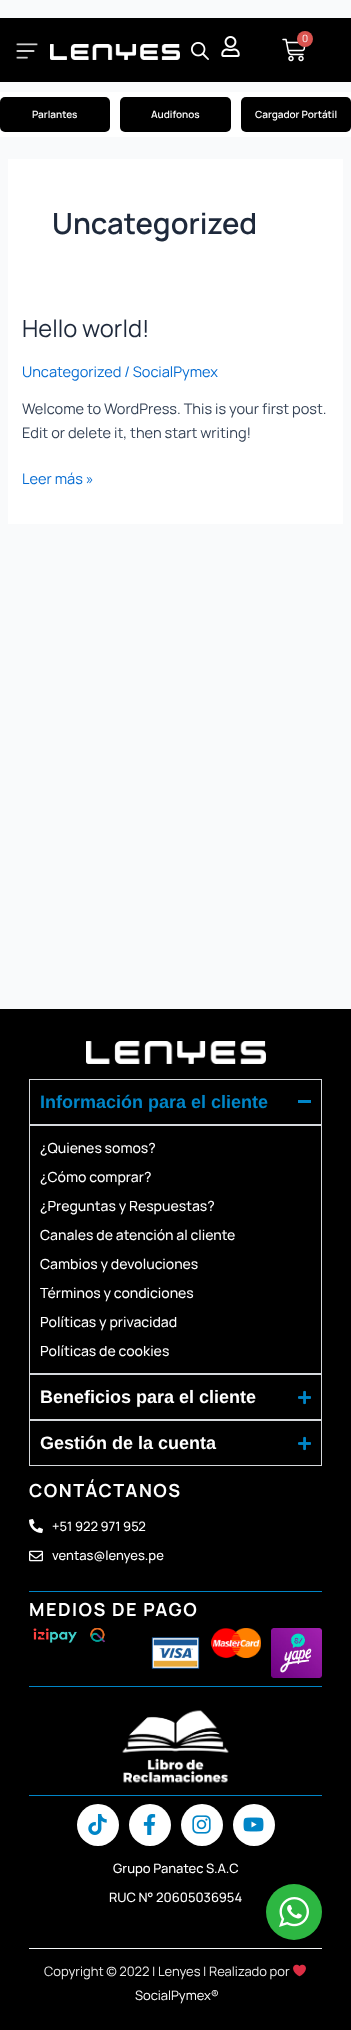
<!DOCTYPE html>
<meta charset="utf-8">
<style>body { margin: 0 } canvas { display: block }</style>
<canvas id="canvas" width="351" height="2030"></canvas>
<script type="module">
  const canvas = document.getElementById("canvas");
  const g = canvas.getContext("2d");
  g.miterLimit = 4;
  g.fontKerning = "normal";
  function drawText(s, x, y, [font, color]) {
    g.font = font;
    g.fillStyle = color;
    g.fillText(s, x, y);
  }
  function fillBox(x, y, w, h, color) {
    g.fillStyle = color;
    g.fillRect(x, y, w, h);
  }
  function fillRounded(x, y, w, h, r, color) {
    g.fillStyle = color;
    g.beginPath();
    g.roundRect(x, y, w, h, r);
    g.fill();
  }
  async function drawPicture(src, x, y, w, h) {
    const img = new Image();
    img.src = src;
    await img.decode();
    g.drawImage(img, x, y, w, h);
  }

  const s1 = ["10px Manrope", "#FFFFFF"];
  const s2 = ["600 10px Manrope", "#FFFFFF"];
  const s3 = ["600 29.25px Manrope", "#1E293B"];
  const s4 = ["23.75px Manrope", "#1E293B"];
  const s5 = ["14.6px Manrope", "#046BD2"];
  const s6 = ["14.6px Manrope", "#334155"];
  const s7 = ["bold 18px Liberation Sans", "#0085C7"];
  const s8 = ["500 14px Manrope", "#FFFFFF"];
  const s9 = ["bold 18px Liberation Sans", "#FFFFFF"];
  const s10 = ["bold 18px Manrope", "#FFFFFF"];
  const s11 = ["500 13px Manrope", "#FFFFFF"];
  const s12 = ["13px Manrope", "#EDEDED"];
  const s13 = ["13px Manrope", "#FFFFFF"];

  fillBox(0, 0, 351, 2030, "#F9FAFB");
  fillBox(0, 18, 351, 64, "#000000");
  await drawPicture("pic1.png", 16, 43, 22, 16);
  await drawPicture("pic2.png", 50, 44, 130, 16);
  await drawPicture("pic3.png", 191, 42, 18, 18);
  await drawPicture("pic4.png", 221, 36, 19, 21);
  await drawPicture("pic5.png", 282, 38, 24, 24);
  g.fillStyle = "#D9534F";
  g.beginPath();
  g.arc(305, 39, 8, 0, Math.PI * 2);
  g.fill();
  drawText("0", 302, 42, s1);
  fillBox(0, 92, 351, 45, "#FFFFFF");
  fillRounded(0, 97, 110, 35, 5, "#000000");
  drawText("Parlantes", 32, 118, s2);
  fillRounded(120, 97, 111, 35, 5, "#000000");
  drawText("Audifonos", 151, 118, s2);
  fillRounded(241, 97, 110, 35, 5, "#000000");
  drawText("Cargador Portátil", 255, 118, s2);
  fillBox(8, 159, 335, 365, "#FFFFFF");
  drawText("Uncategorized", 52, 234, s3);
  drawText("Hello world!", 22, 337, s4);
  drawText("Uncategorized / SocialPymex", 22, 377, s5);
  drawText("Welcome to WordPress. This is your first post.", 22, 414, s6);
  drawText("Edit or delete it, then start writing!", 22, 438, s6);
  drawText("Leer más »", 22, 484, s5);
  fillBox(0, 1009, 351, 1021, "#000000");
  await drawPicture("pic6.png", 86, 1041, 180, 23);
  g.strokeStyle = "#D5D8DC";
  g.strokeRect(29.5, 1079.5, 292, 45);
  drawText("Información para el cliente", 40, 1108, s7);
  fillBox(298, 1100, 13, 3, "#0085C7");
  g.strokeRect(29.5, 1125.5, 292, 248);
  drawText("¿Quienes somos?", 40, 1153, s8);
  drawText("¿Cómo comprar?", 40, 1182, s8);
  drawText("¿Preguntas y Respuestas?", 40, 1211, s8);
  drawText("Canales de atención al cliente", 40, 1240, s8);
  drawText("Cambios y devoluciones", 40, 1269, s8);
  drawText("Términos y condiciones", 40, 1298, s8);
  drawText("Políticas y privacidad", 40, 1327, s8);
  drawText("Políticas de cookies", 40, 1356, s8);
  g.strokeRect(29.5, 1374.5, 292, 45);
  drawText("Beneficios para el cliente", 40, 1403, s9);
  await drawPicture("pic7.png", 298, 1390, 13, 15);
  g.strokeRect(29.5, 1420.5, 292, 45);
  drawText("Gestión de la cuenta", 40, 1449, s9);
  await drawPicture("pic7.png", 298, 1436, 13, 15);
  g.letterSpacing = "1.5px";
  drawText("CONTÁCTANOS", 29, 1497, s10);
  await drawPicture("pic8.png", 29, 1519, 14, 14);
  g.letterSpacing = "0px";
  drawText("+51 922 971 952", 52, 1531, s11);
  await drawPicture("pic9.png", 29, 1550, 14, 12);
  drawText("ventas@lenyes.pe", 52, 1560, s11);
  fillBox(29, 1591, 293, 1, "#0085C7");
  g.letterSpacing = "1.5px";
  drawText("MEDIOS DE PAGO", 29, 1616, s10);
  await drawPicture("pic10.png", 33, 1628, 44, 15);
  await drawPicture("pic11.png", 90, 1628, 16, 15);
  await drawPicture("pic12.png", 151, 1637, 49, 32);
  await drawPicture("pic13.png", 211, 1628, 50, 30);
  await drawPicture("pic14.png", 271, 1628, 51, 50);
  fillBox(29, 1686, 293, 1, "#0085C7");
  await drawPicture("pic15.png", 122, 1710, 107, 73);
  fillBox(29, 1795, 293, 1, "#0085C7");
  g.fillStyle = "#FFFFFF";
  g.beginPath();
  g.arc(98, 1825, 21, 0, Math.PI * 2);
  g.fill();
  await drawPicture("pic16.png", 88, 1814, 19, 21);
  g.beginPath();
  g.arc(150, 1825, 21, 0, Math.PI * 2);
  g.fill();
  await drawPicture("pic17.png", 143, 1814, 13, 21);
  g.beginPath();
  g.arc(202, 1825, 21, 0, Math.PI * 2);
  g.fill();
  await drawPicture("pic18.png", 192, 1815, 19, 19);
  g.beginPath();
  g.arc(254, 1825, 21, 0, Math.PI * 2);
  g.fill();
  await drawPicture("pic19.png", 243, 1817, 21, 15);
  g.letterSpacing = "0px";
  drawText("Grupo Panatec S.A.C", 113, 1873, s11);
  drawText("RUC N° 20605036954", 109, 1902, s11);
  fillBox(29, 1948, 293, 1, "#F6F8F9");
  drawText("Copyright © 2022 | Lenyes | Realizado por", 44, 1976, s12);
  await drawPicture("pic20.png", 293, 1964, 13, 13);
  drawText("SocialPymex®", 135, 2000, s13);
  g.fillStyle = "rgba(0, 0, 0, 0.14)";
  g.filter = "blur(4px)";
  g.beginPath();
  g.roundRect(264, 1888, 60, 60, 30);
  g.fill();
  g.filter = "none";
  g.fillStyle = "#2DB742";
  g.beginPath();
  g.arc(294, 1912, 28, 0, Math.PI * 2);
  g.fill();
  await drawPicture("pic21.png", 279, 1897, 30, 30);
</script>
